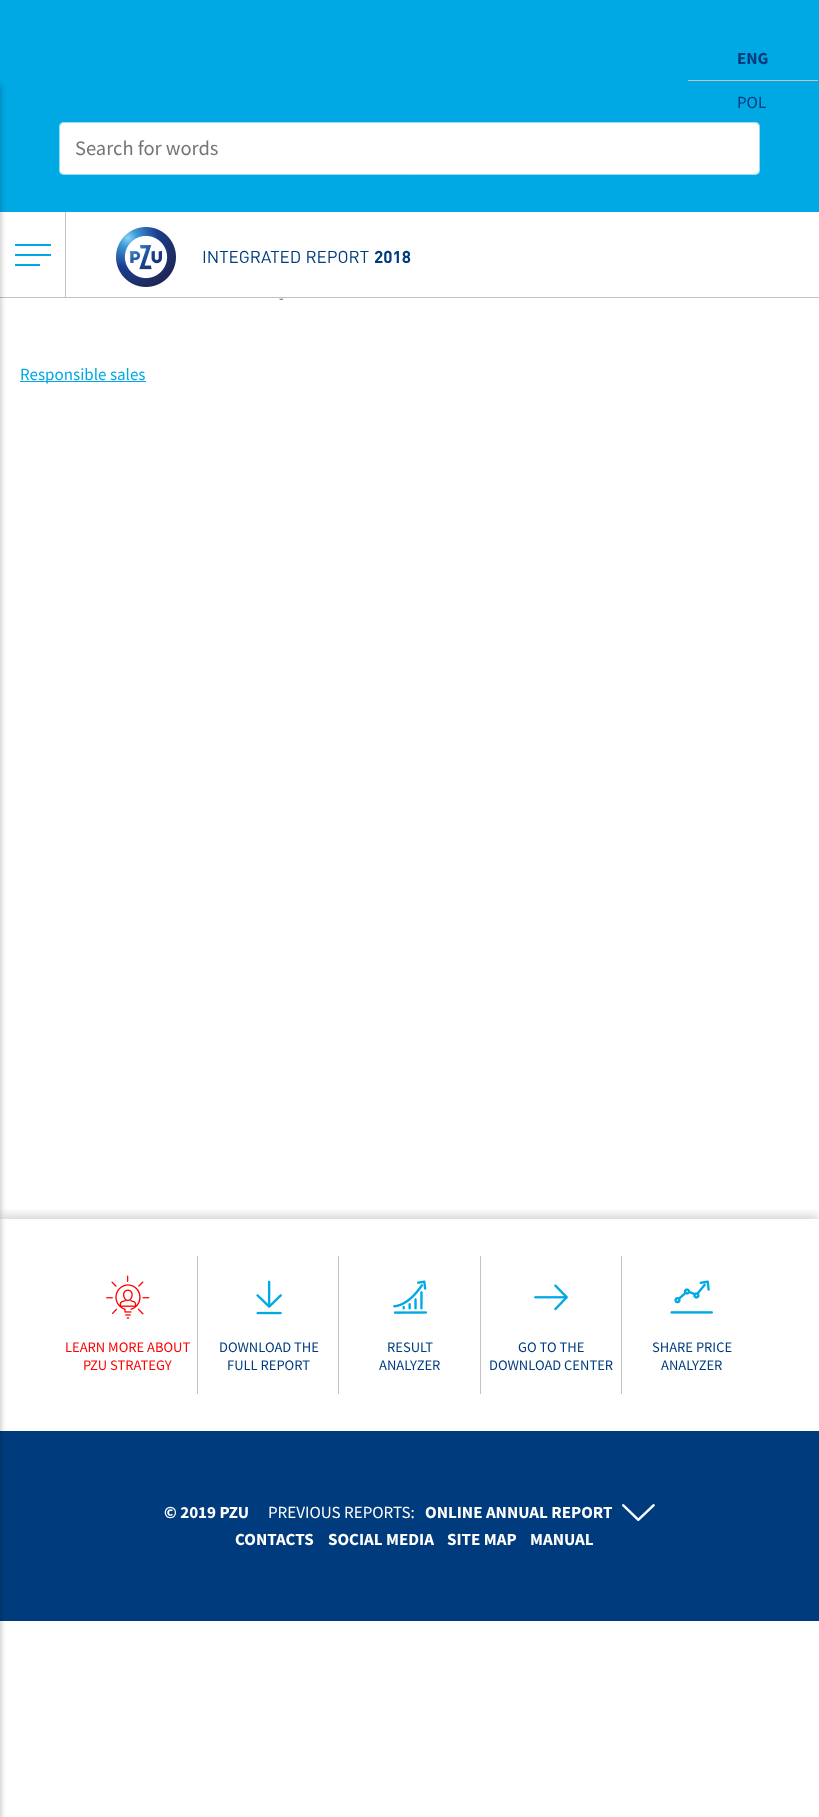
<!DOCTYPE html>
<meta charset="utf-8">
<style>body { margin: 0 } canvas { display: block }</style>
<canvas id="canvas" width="819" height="1817"></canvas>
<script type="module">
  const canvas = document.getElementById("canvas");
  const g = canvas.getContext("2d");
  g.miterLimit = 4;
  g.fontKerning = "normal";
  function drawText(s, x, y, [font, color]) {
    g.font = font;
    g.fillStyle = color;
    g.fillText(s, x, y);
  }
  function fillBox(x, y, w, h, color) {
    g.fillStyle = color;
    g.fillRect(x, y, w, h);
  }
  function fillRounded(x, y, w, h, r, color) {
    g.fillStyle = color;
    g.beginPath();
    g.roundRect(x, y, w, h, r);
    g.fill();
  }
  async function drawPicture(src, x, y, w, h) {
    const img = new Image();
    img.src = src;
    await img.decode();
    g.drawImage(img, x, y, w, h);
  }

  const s1 = ["bold 17px Source Sans Pro", "#003C7D"];
  const s2 = ["17px Source Sans Pro", "#003C7D"];
  const s3 = ["20.5px Source Sans Pro", "#757575"];
  const s4 = ["17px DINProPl", "#003C7D"];
  const s5 = ["bold 17px DINProPl", "#003C7D"];
  const s6 = ["15px Source Sans Pro", "#545C68"];
  const s7 = ["17px Source Sans Pro", "#00A8E4"];
  const s8 = ["14.5px Source Sans Pro", "#FF0000"];
  const s9 = ["14.5px Source Sans Pro", "#003C7D"];
  const s10 = ["bold 17px Source Sans Pro", "#FFFFFF"];
  const s11 = ["17px Source Sans Pro", "#FFFFFF"];

  fillBox(0, 0, 819, 1817, "#FFFFFF");
  fillBox(0, 0, 819, 212, "#00A8E4");
  fillBox(0, 297, 819, 1, "#C2C2C2");
  g.save();
  g.beginPath();
  g.rect(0, 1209, 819, 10);
  g.clip();
  g.fillStyle = "rgba(50, 50, 50, 0.2)";
  g.filter = "blur(5px)";
  g.beginPath();
  g.rect(0, 1215, 819, 212);
  g.fill();
  g.filter = "none";
  g.restore();
  fillBox(0, 1431, 819, 190, "#003C7D");
  g.fillStyle = "rgba(0, 0, 0, 0.3)";
  g.filter = "blur(3px)";
  g.beginPath();
  g.rect(-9, 86, 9, 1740);
  g.fill();
  g.filter = "none";
  fillBox(688, 80, 130, 1, "#C2C2C2");
  drawText("ENG", 737, 64, s1);
  drawText("POL", 737, 108, s2);
  fillRounded(59, 122, 701, 53, 5, "#FFFFFF");
  g.beginPath();
  g.roundRect(59.5, 122.5, 700, 52, 4.5);
  g.strokeStyle = "rgba(0, 168, 228, 0.4)";
  g.stroke();
  drawText("Search for words", 75, 155, s3);
  fillBox(65, 212, 1, 85, "#C2C2C2");
  fillBox(15, 254, 36, 2, "#00A8E4");
  fillBox(15, 244, 36, 2, "#00A8E4");
  fillBox(15, 264, 25, 2, "#00A8E4");
  await drawPicture("pic1.png", 116, 227, 60, 60);
  drawText("INTEGRATED REPORT", 202, 263, s4);
  drawText("2018", 374, 263, s5);
  drawText("-", 279, 303, s6);
  fillBox(20, 381, 126, 1, "#00A8E4");
  drawText("Responsible sales", 20, 380, s7);
  fillBox(197, 1256, 1, 138, "#C2C2C2");
  await drawPicture("pic2.png", 106, 1275, 44, 44);
  drawText("LEARN MORE ABOUT", 65, 1352, s8);
  drawText("PZU STRATEGY", 83, 1370, s8);
  fillBox(338, 1256, 1, 138, "#C2C2C2");
  await drawPicture("pic3.png", 256, 1280, 26, 35);
  drawText("DOWNLOAD THE", 219, 1352, s9);
  drawText("FULL REPORT", 227, 1370, s9);
  fillBox(480, 1256, 1, 138, "#C2C2C2");
  await drawPicture("pic4.png", 393, 1280, 34, 34);
  drawText("RESULT", 387, 1352, s9);
  drawText("ANALYZER", 379, 1370, s9);
  fillBox(621, 1256, 1, 138, "#C2C2C2");
  await drawPicture("pic5.png", 534, 1284, 34, 27);
  drawText("GO TO THE", 518, 1352, s9);
  drawText("DOWNLOAD CENTER", 489, 1370, s9);
  await drawPicture("pic6.png", 670, 1280, 43, 34);
  drawText("SHARE PRICE", 652, 1352, s9);
  drawText("ANALYZER", 661, 1370, s9);
  drawText("© 2019 PZU", 164, 1518, s10);
  drawText("PREVIOUS REPORTS:", 268, 1518, s11);
  drawText("ONLINE ANNUAL REPORT", 425, 1518, s10);
  await drawPicture("pic7.png", 622, 1504, 33, 17);
  drawText("CONTACTS", 235, 1545, s10);
  drawText("SOCIAL MEDIA", 328, 1545, s10);
  drawText("SITE MAP", 447, 1545, s10);
  drawText("MANUAL", 530, 1545, s10);
</script>
